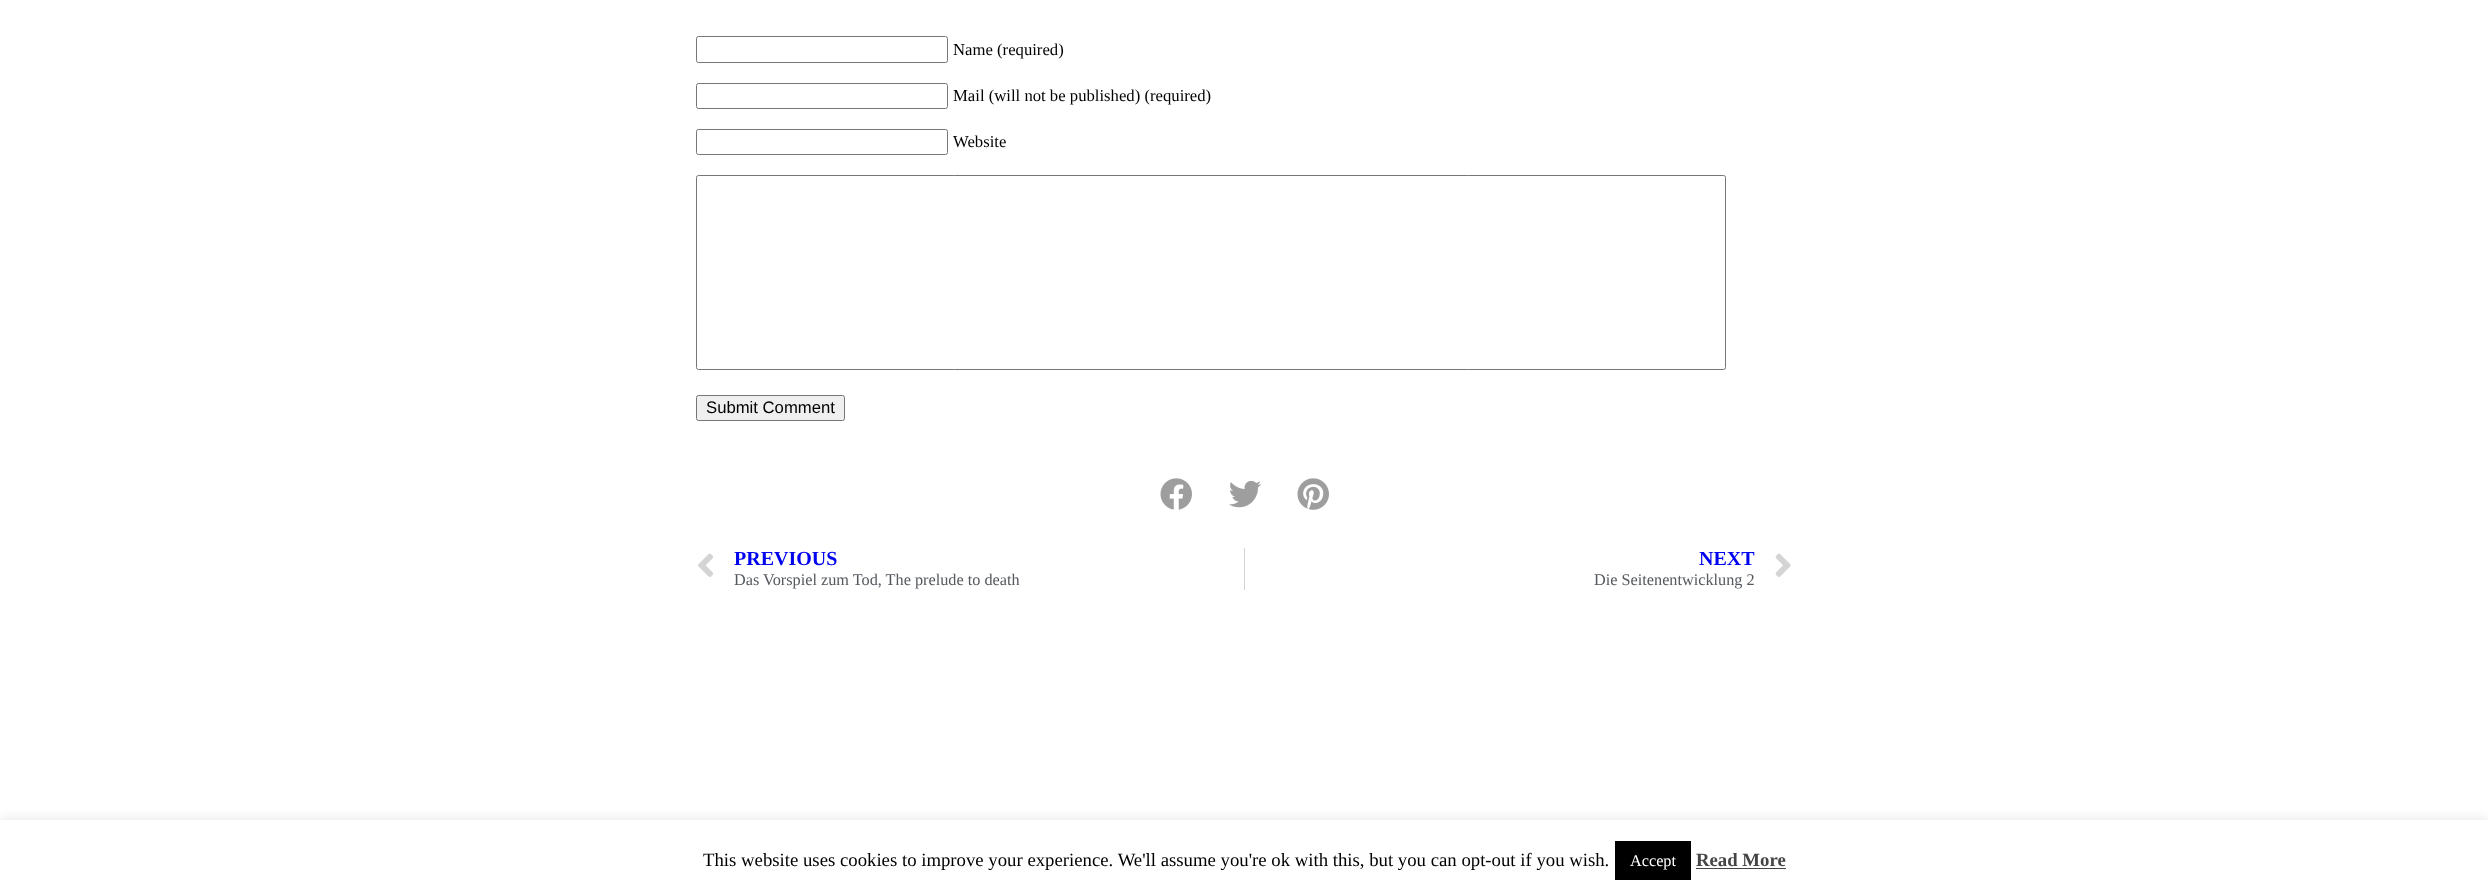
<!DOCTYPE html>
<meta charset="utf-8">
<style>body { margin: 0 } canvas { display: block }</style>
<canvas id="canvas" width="2488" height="895"></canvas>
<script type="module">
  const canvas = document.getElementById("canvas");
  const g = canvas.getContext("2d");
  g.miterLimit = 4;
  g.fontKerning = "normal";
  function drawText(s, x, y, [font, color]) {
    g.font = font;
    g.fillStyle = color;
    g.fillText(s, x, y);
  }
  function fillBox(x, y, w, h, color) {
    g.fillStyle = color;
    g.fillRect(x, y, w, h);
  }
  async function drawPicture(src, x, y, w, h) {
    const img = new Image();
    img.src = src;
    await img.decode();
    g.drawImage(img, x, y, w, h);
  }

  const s1 = ["16.7px Liberation Serif", "#000000"];
  const s2 = ["16.7px Liberation Sans", "#000000"];
  const s3 = ["bold 20px Liberation Serif", "#0003EF"];
  const s4 = ["16.25px Liberation Serif", "#54595F"];
  const s5 = ["18.75px Liberation Serif", "#000000"];
  const s6 = ["16.25px Liberation Serif", "#FFFFFF"];
  const s7 = ["bold 18.75px Liberation Serif", "#444444"];

  fillBox(0, 0, 2488, 895, "#FFFFFF");
  g.beginPath();
  g.roundRect(696.5, 36.5, 251, 26, 2);
  g.strokeStyle = "#767676";
  g.stroke();
  drawText("Name (required)", 953, 55, s1);
  g.beginPath();
  g.roundRect(696.5, 83.5, 251, 25, 2);
  g.stroke();
  drawText("Mail (will not be published) (required)", 953, 101, s1);
  g.beginPath();
  g.roundRect(696.5, 129.5, 251, 25, 2);
  g.stroke();
  drawText("Website", 953, 147, s1);
  g.beginPath();
  g.roundRect(696.5, 175.5, 1029, 194, 2);
  g.stroke();
  g.fillStyle = "#EFEFEF";
  g.beginPath();
  g.roundRect(696.5, 395.5, 148, 25, 2);
  g.fill();
  g.stroke();
  drawText("Submit Comment", 706, 413, s2);
  await drawPicture("pic1.png", 1160, 478, 32, 32);
  await drawPicture("pic2.png", 1229, 480, 32, 28);
  await drawPicture("pic3.png", 1297, 478, 32, 32);
  await drawPicture("pic4.png", 698, 553, 16, 24);
  drawText("PREVIOUS", 734, 565, s3);
  drawText("Das Vorspiel zum Tod, The prelude to death", 734, 585, s4);
  fillBox(1244, 548, 1, 42, "#D4D4D4");
  drawText("NEXT", 1699, 565, s3);
  drawText("Die Seitenentwicklung 2", 1594, 585, s4);
  await drawPicture("pic5.png", 1775, 553, 16, 24);
  g.fillStyle = "rgba(172, 171, 171, 0.3)";
  g.filter = "blur(6px)";
  g.beginPath();
  g.rect(0, 819, 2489, 75);
  g.fill();
  g.filter = "none";
  fillBox(0, 820, 2488, 75, "#FFFFFF");
  drawText("This website uses cookies to improve your experience. We'll assume you're ok with this, but you can opt-out if you wish.", 703, 866, s5);
  fillBox(1615, 841, 76, 39, "#000000");
  drawText("Accept", 1630, 866, s6);
  drawText("Read More", 1696, 866, s7);
  fillBox(1696, 868, 90, 1, "#444444");
</script>
